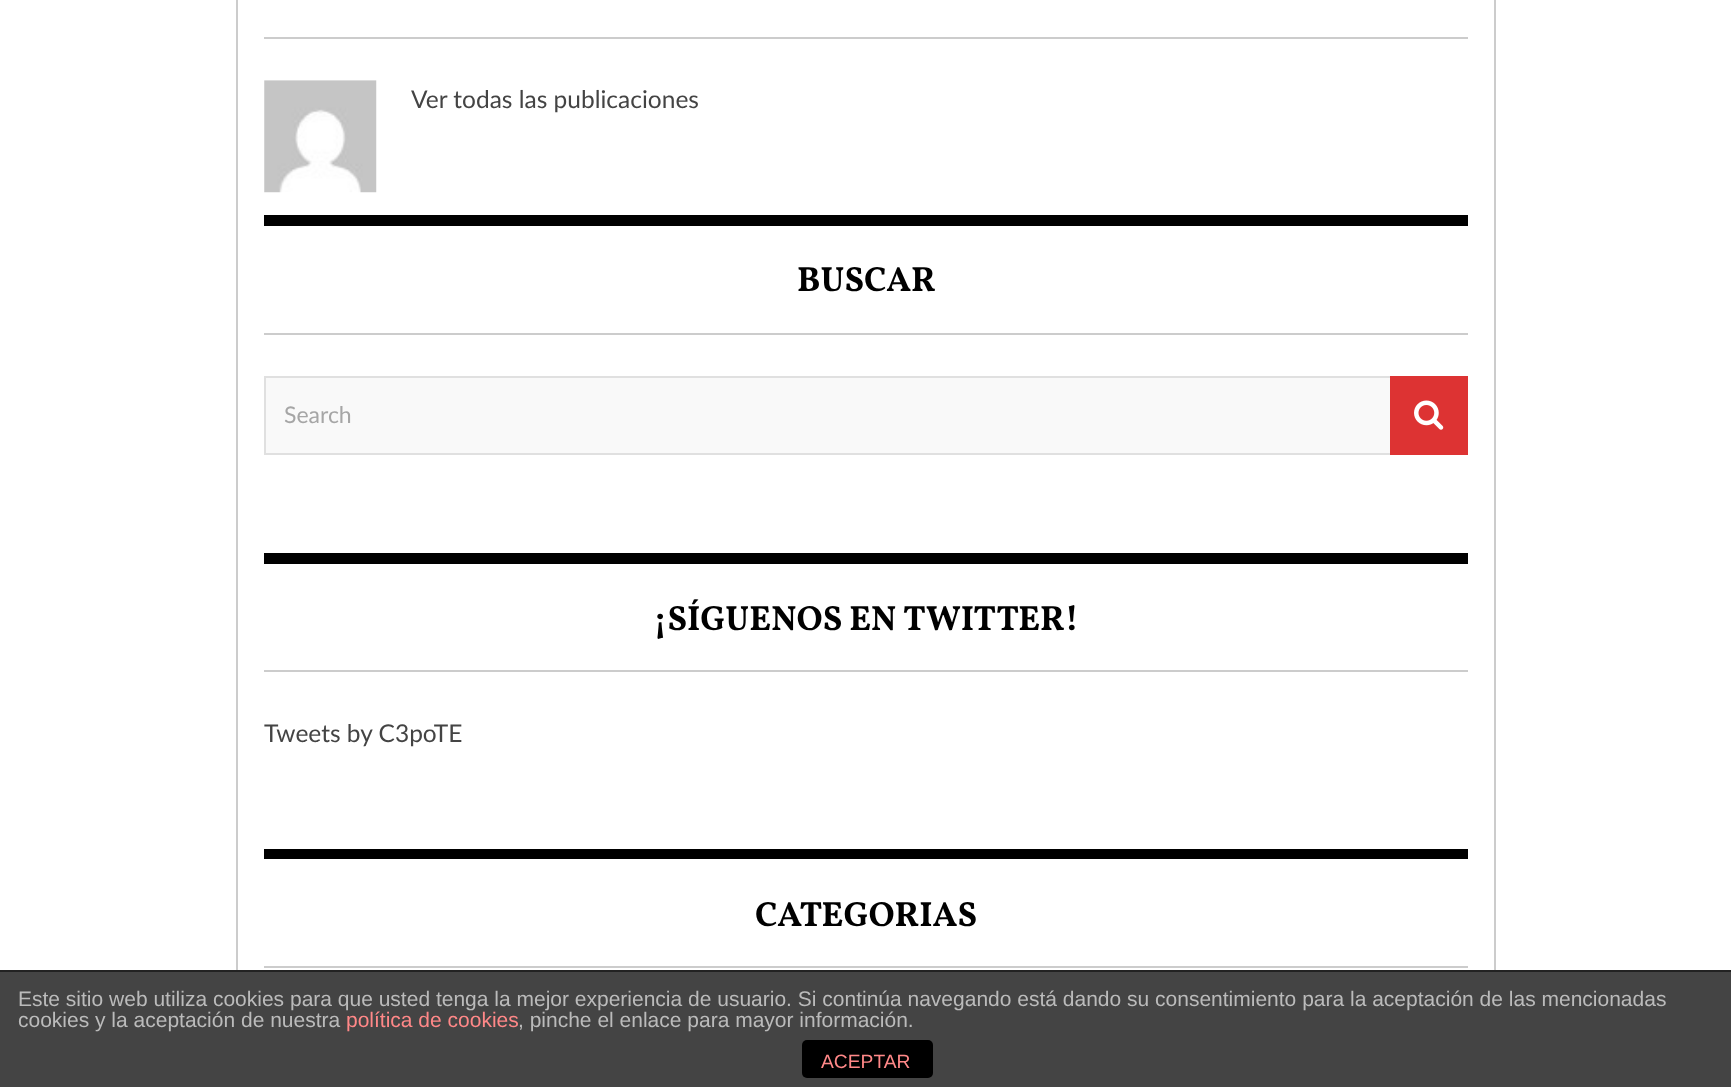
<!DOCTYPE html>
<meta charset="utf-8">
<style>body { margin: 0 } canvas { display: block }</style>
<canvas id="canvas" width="1731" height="1087"></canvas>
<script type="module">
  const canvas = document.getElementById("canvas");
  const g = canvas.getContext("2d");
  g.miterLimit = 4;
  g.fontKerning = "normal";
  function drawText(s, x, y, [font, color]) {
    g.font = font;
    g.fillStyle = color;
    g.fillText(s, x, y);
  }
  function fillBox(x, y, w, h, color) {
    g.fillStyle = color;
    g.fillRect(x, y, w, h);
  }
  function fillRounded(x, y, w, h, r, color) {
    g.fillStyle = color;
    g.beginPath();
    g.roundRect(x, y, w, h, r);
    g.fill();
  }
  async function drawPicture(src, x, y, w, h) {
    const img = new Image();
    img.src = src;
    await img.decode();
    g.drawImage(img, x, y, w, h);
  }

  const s1 = ["24.5px Lato", "#444444"];
  const s2 = ["bold 35px Vollkorn", "#000000"];
  const s3 = ["23px Lato", "#A6A6A6"];
  const s4 = ["21px Liberation Sans", "#BBBBBB"];
  const s5 = ["21px Liberation Sans", "#FF8888"];
  const s6 = ["19.25px Liberation Sans", "#FF8888"];

  fillBox(0, 0, 1731, 1087, "#FFFFFF");
  g.strokeStyle = "#CCCCCC";
  g.lineWidth = 2;
  g.strokeRect(237, -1, 1258, 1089);
  fillBox(264, 37, 1204, 2, "#CCCCCC");
  await drawPicture("pic1.png", 264, 80, 113, 113);
  drawText("Ver todas las publicaciones", 411, 108, s1);
  fillBox(264, 215, 1204, 11, "#000000");
  fillBox(264, 333, 1204, 2, "#CCCCCC");
  drawText("BUSCAR", 797, 291, s2);
  fillBox(266, 378, 1124, 75, "#F9F9F9");
  g.strokeStyle = "#E0E0E0";
  g.strokeRect(265, 377, 1202, 77);
  drawText("Search", 284, 423, s3);
  fillBox(1390, 376, 78, 79, "#DD3333");
  await drawPicture("pic2.png", 1414, 400, 30, 30);
  fillBox(264, 553, 1204, 11, "#000000");
  fillBox(264, 670, 1204, 2, "#CCCCCC");
  drawText("¡SÍGUENOS EN TWITTER!", 653, 630, s2);
  drawText("Tweets by C3poTE", 264, 742, s1);
  fillBox(264, 849, 1204, 10, "#000000");
  fillBox(264, 966, 1204, 2, "#CCCCCC");
  drawText("CATEGORIAS", 755, 926, s2);
  fillBox(0, 972, 1731, 115, "#444444");
  fillBox(0, 970, 1731, 2, "#222222");
  drawText("Este sitio web utiliza cookies para que usted tenga la mejor experiencia de usuario. Si continúa navegando está dando su consentimiento para la aceptación de las mencionadas", 18, 1006, s4);
  drawText("cookies y la aceptación de nuestra", 18, 1027, s4);
  drawText("política de cookies", 346, 1027, s5);
  drawText(", pinche el enlace para mayor información.", 518, 1027, s4);
  fillRounded(802, 1040, 131, 38, 5, "#000000");
  drawText("ACEPTAR", 821, 1068, s6);
</script>
